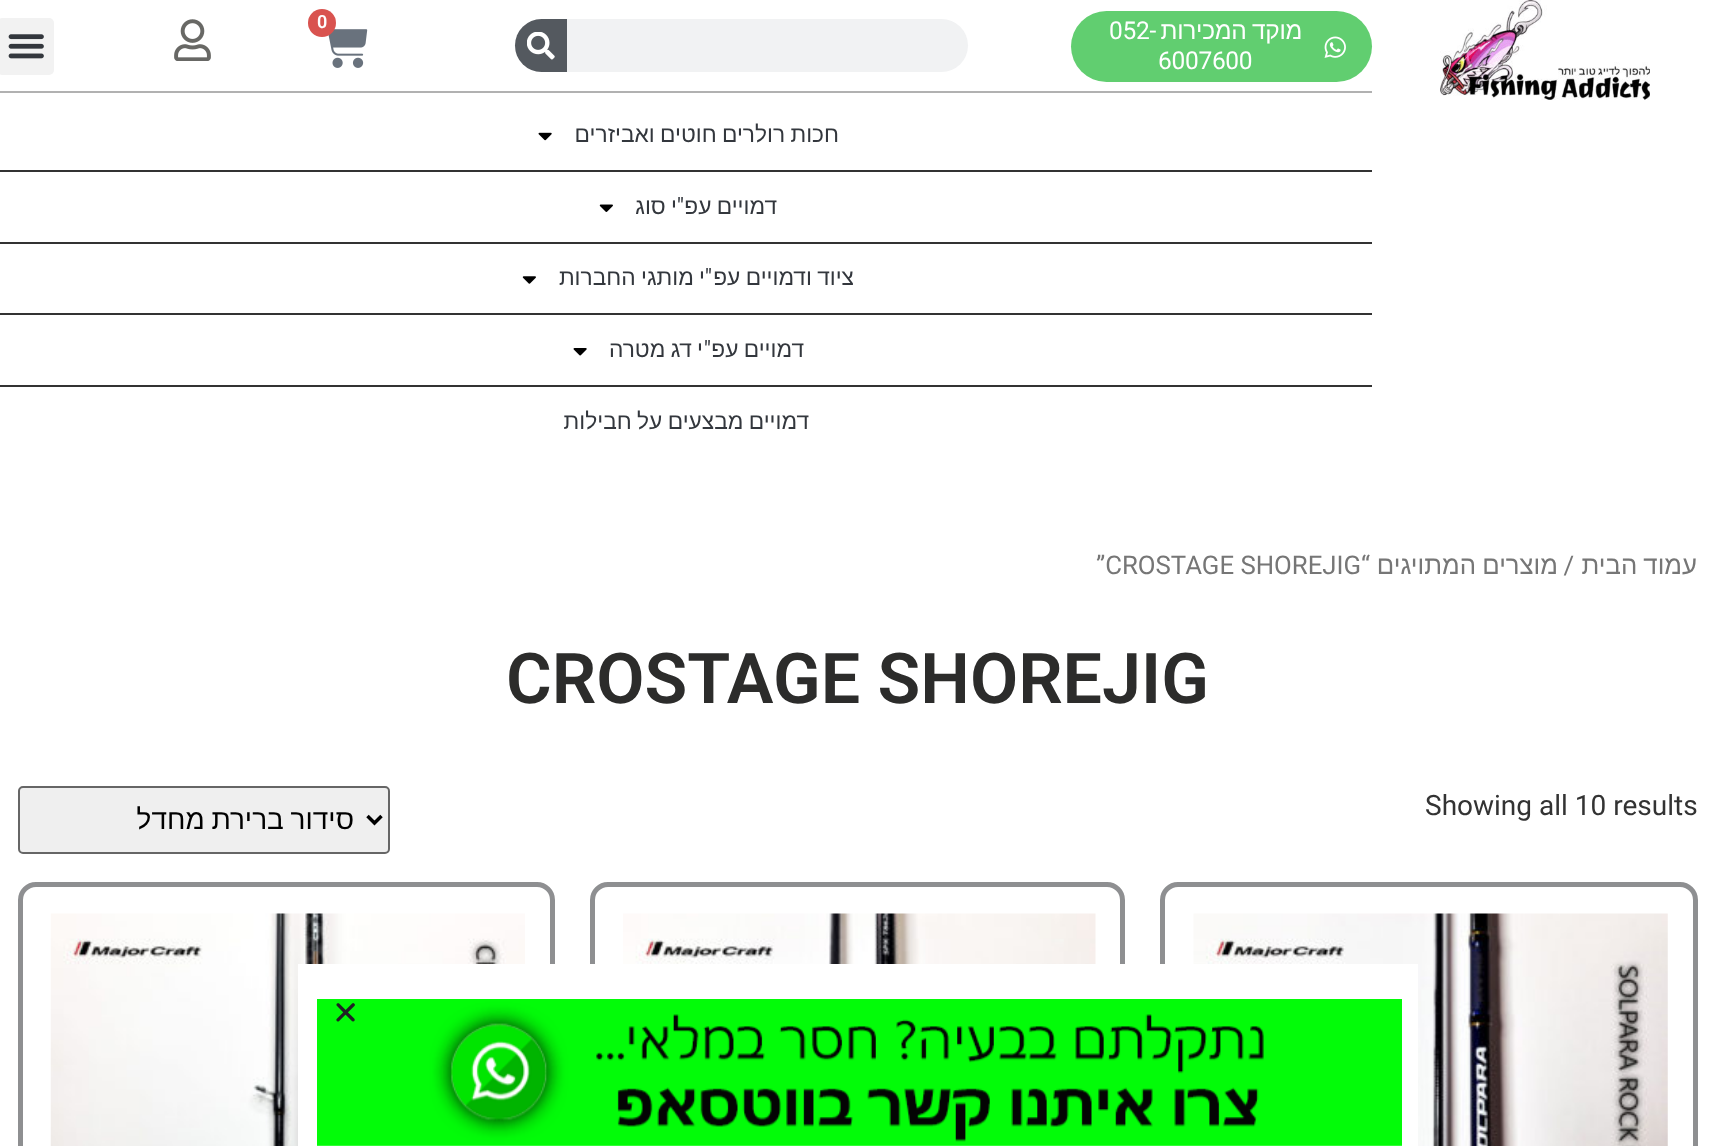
<!DOCTYPE html>
<meta charset="utf-8">
<style>body { margin: 0 } canvas { display: block }</style>
<canvas id="canvas" width="1714" height="1146"></canvas>
<script type="module">
  const canvas = document.getElementById("canvas");
  const g = canvas.getContext("2d");
  g.miterLimit = 4;
  g.fontKerning = "normal";
  function drawText(s, x, y, [font, color]) {
    g.font = font;
    g.fillStyle = color;
    g.fillText(s, x, y);
  }
  function fillBox(x, y, w, h, color) {
    g.fillStyle = color;
    g.fillRect(x, y, w, h);
  }
  function fillRounded(x, y, w, h, r, color) {
    g.fillStyle = color;
    g.beginPath();
    g.roundRect(x, y, w, h, r);
    g.fill();
  }
  async function drawPicture(src, x, y, w, h) {
    const img = new Image();
    img.src = src;
    await img.decode();
    g.drawImage(img, x, y, w, h);
  }

  const s1 = ["24.5px Liberation Sans", "#FFFFFF"];
  const s2 = ["24.5px Roboto", "#FFFFFF"];
  const s3 = ["600 18px Roboto", "#FFFFFF"];
  const s4 = ["22.75px Liberation Sans", "#33373D"];
  const s5 = ["22.75px Roboto", "#33373D"];
  const s6 = ["25.75px Liberation Sans", "#767676"];
  const s7 = ["25.75px Roboto", "#767676"];
  const s8 = ["600 70px Roboto", "#2C2C2B"];
  const s9 = ["28px Roboto", "#333333"];
  const s10 = ["28px Liberation Sans", "#000000"];

  fillBox(0, 0, 1714, 1146, "#FFFFFF");
  await drawPicture("pic1.png", 1440, 0, 210, 100);
  fillBox(0, 91, 1372, 2, "#B1B1B1");
  fillRounded(1071, 11, 301, 71, 35.5, "#61CE70");
  await drawPicture("pic2.png", 1324, 36, 22, 22);
  g.letterSpacing = "-0.3px";
  g.wordSpacing = "-1px";
  g.direction = "rtl";
  drawText("מוקד המכירות", 1302, 39, s1);
  g.wordSpacing = "0px";
  g.direction = "ltr";
  drawText("052-", 1109, 39, s2);
  drawText("6007600", 1158, 69, s2);
  fillRounded(515, 19, 453, 53, 26.5, "#F1F2F3");
  g.fillStyle = "#54595F";
  g.beginPath();
  g.roundRect(515, 19, 52, 53, [26.5, 0, 0, 26.5]);
  g.fill();
  await drawPicture("pic3.png", 527, 32, 28, 28);
  await drawPicture("pic4.png", 328, 29, 40, 39);
  g.fillStyle = "#D9534F";
  g.beginPath();
  g.arc(322, 23, 14, 0, Math.PI * 2);
  g.fill();
  g.letterSpacing = "0px";
  drawText("0", 317, 28, s3);
  await drawPicture("pic5.png", 174, 19, 37, 42);
  fillRounded(-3, 18, 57, 57, 5, "#F2F2F2");
  await drawPicture("pic6.png", 8, 34, 36, 25);
  fillBox(0, 170, 1372, 2, "#333333");
  g.wordSpacing = "-1px";
  g.direction = "rtl";
  drawText("חכות רולרים חוטים ואביזרים", 839, 142, s4);
  await drawPicture("pic7.png", 538, 132, 14, 9);
  fillBox(0, 242, 1372, 2, "#333333");
  drawText("דמויים עפ", 777, 214, s4);
  g.wordSpacing = "0px";
  drawText("\"", 684, 214, s5);
  g.wordSpacing = "-1px";
  drawText("י סוג", 677, 214, s4);
  await drawPicture("pic8.png", 599, 204, 14, 8);
  fillBox(0, 313, 1372, 2, "#333333");
  drawText("ציוד ודמויים עפ", 854, 285, s4);
  g.wordSpacing = "0px";
  drawText("\"", 712, 285, s5);
  g.wordSpacing = "-1px";
  drawText("י מותגי החברות", 705, 285, s4);
  await drawPicture("pic9.png", 522, 276, 14, 8);
  fillBox(0, 385, 1372, 2, "#333333");
  drawText("דמויים עפ", 804, 357, s4);
  g.wordSpacing = "0px";
  drawText("\"", 711, 357, s5);
  g.wordSpacing = "-1px";
  drawText("י דג מטרה", 703, 357, s4);
  await drawPicture("pic10.png", 573, 348, 14, 8);
  drawText("דמויים מבצעים על חבילות", 809, 429, s4);
  drawText("עמוד הבית", 1697, 574, s6);
  g.wordSpacing = "0px";
  drawText("/", 1574, 574, s7);
  g.wordSpacing = "-1px";
  drawText("מוצרים המתויגים", 1558, 574, s6);
  g.wordSpacing = "0px";
  drawText("“", 1370, 574, s7);
  g.direction = "ltr";
  drawText("”CROSTAGE SHOREJIG", 1096, 574, s7);
  drawText("CROSTAGE SHOREJIG", 506, 703, s8);
  drawText("Showing all 10 results", 1425, 815, s9);
  g.fillStyle = "#EFEFEF";
  g.beginPath();
  g.roundRect(19, 787, 370, 66, 4);
  g.fill();
  g.strokeStyle = "#666666";
  g.lineWidth = 2;
  g.stroke();
  g.beginPath();
  g.moveTo(367.5, 816);
  g.lineTo(374.5, 823);
  g.lineTo(381.5, 816);
  g.strokeStyle = "#000000";
  g.lineWidth = 3.5;
  g.stroke();
  g.wordSpacing = "-1px";
  g.direction = "rtl";
  drawText("סידור ברירת מחדל", 354, 829, s10);
  g.beginPath();
  g.roundRect(1162.5, 884.5, 533, 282, 15.5);
  g.strokeStyle = "#8E8F91";
  g.lineWidth = 5;
  g.stroke();
  await drawPicture("pic11.png", 1193, 913, 475, 233);
  g.beginPath();
  g.roundRect(592.5, 884.5, 530, 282, 15.5);
  g.stroke();
  await drawPicture("pic12.png", 623, 913, 473, 51);
  g.beginPath();
  g.roundRect(20.5, 884.5, 532, 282, 15.5);
  g.stroke();
  await drawPicture("pic13.png", 50, 913, 475, 233);
  fillBox(298, 964, 1120, 182, "#FFFFFF");
  await drawPicture("pic14.png", 317, 999, 1085, 147);
  await drawPicture("pic15.png", 336, 1003, 19, 19);
</script>
